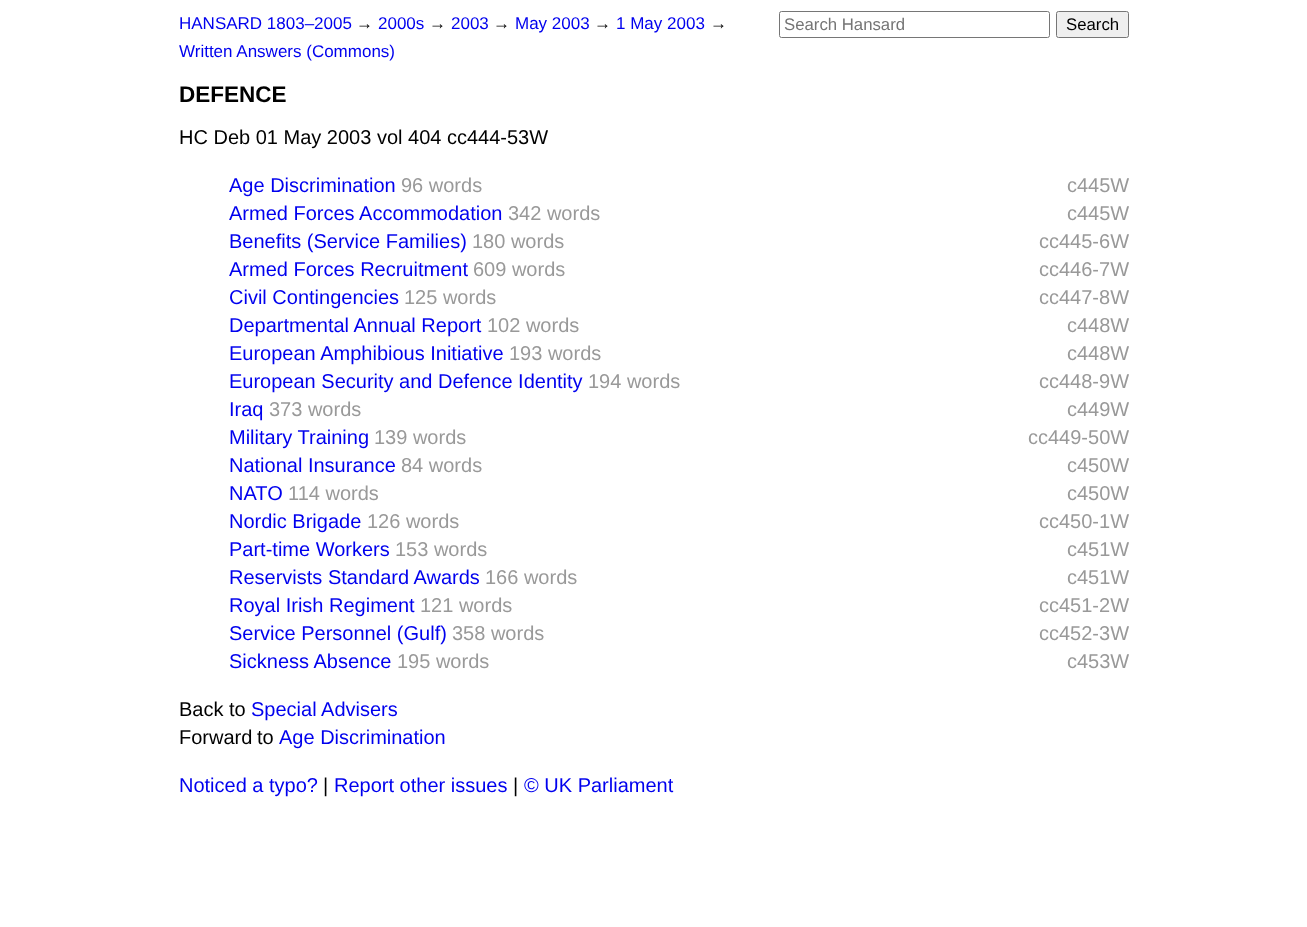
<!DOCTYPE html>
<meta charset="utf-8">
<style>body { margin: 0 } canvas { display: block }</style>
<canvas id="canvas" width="1307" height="927"></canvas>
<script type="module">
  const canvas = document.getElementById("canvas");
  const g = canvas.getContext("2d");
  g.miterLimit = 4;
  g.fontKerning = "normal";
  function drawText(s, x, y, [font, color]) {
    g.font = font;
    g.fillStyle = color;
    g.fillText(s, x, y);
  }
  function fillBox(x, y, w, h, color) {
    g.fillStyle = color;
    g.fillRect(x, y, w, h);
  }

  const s1 = ["17px Liberation Sans", "#0000EE"];
  const s2 = ["17px Liberation Sans", "#000000"];
  const s3 = ["16.75px Liberation Sans", "#757575"];
  const s4 = ["16.75px Liberation Sans", "#000000"];
  const s5 = ["bold 22.5px Liberation Sans", "#000000"];
  const s6 = ["20px Liberation Sans", "#000000"];
  const s7 = ["20px Liberation Sans", "#0000EE"];
  const s8 = ["20px Liberation Sans", "#999999"];

  fillBox(0, 0, 1307, 927, "#FFFFFF");
  drawText("HANSARD 1803–2005", 179, 29, s1);
  drawText("→", 356, 29, s2);
  drawText("2000s", 378, 29, s1);
  drawText("→", 429, 29, s2);
  drawText("2003", 451, 29, s1);
  drawText("→", 493, 29, s2);
  drawText("May 2003", 515, 29, s1);
  drawText("→", 594, 29, s2);
  drawText("1 May 2003", 616, 29, s1);
  drawText("→", 710, 29, s2);
  drawText("Written Answers (Commons)", 179, 57, s1);
  g.beginPath();
  g.roundRect(779.5, 11.5, 270, 26, 2);
  g.strokeStyle = "#767676";
  g.stroke();
  drawText("Search Hansard", 784, 30, s3);
  g.fillStyle = "#EFEFEF";
  g.beginPath();
  g.roundRect(1056.5, 11.5, 72, 26, 2);
  g.fill();
  g.stroke();
  drawText("Search", 1066, 30, s4);
  drawText("DEFENCE", 179, 102, s5);
  drawText("HC Deb 01 May 2003 vol 404 cc444-53W", 179, 144, s6);
  drawText("Age Discrimination", 229, 192, s7);
  drawText("96 words", 401, 192, s8);
  drawText("c445W", 1067, 192, s8);
  drawText("Armed Forces Accommodation", 229, 220, s7);
  drawText("342 words", 508, 220, s8);
  drawText("c445W", 1067, 220, s8);
  drawText("Benefits (Service Families)", 229, 248, s7);
  drawText("180 words", 472, 248, s8);
  drawText("cc445-6W", 1039, 248, s8);
  drawText("Armed Forces Recruitment", 229, 276, s7);
  drawText("609 words", 473, 276, s8);
  drawText("cc446-7W", 1039, 276, s8);
  drawText("Civil Contingencies", 229, 304, s7);
  drawText("125 words", 404, 304, s8);
  drawText("cc447-8W", 1039, 304, s8);
  drawText("Departmental Annual Report", 229, 332, s7);
  drawText("102 words", 487, 332, s8);
  drawText("c448W", 1067, 332, s8);
  drawText("European Amphibious Initiative", 229, 360, s7);
  drawText("193 words", 509, 360, s8);
  drawText("c448W", 1067, 360, s8);
  drawText("European Security and Defence Identity", 229, 388, s7);
  drawText("194 words", 588, 388, s8);
  drawText("cc448-9W", 1039, 388, s8);
  drawText("Iraq", 229, 416, s7);
  drawText("373 words", 269, 416, s8);
  drawText("c449W", 1067, 416, s8);
  drawText("Military Training", 229, 444, s7);
  drawText("139 words", 374, 444, s8);
  drawText("cc449-50W", 1028, 444, s8);
  drawText("National Insurance", 229, 472, s7);
  drawText("84 words", 401, 472, s8);
  drawText("c450W", 1067, 472, s8);
  drawText("NATO", 229, 500, s7);
  drawText("114 words", 288, 500, s8);
  drawText("c450W", 1067, 500, s8);
  drawText("Nordic Brigade", 229, 528, s7);
  drawText("126 words", 367, 528, s8);
  drawText("cc450-1W", 1039, 528, s8);
  drawText("Part-time Workers", 229, 556, s7);
  drawText("153 words", 395, 556, s8);
  drawText("c451W", 1067, 556, s8);
  drawText("Reservists Standard Awards", 229, 584, s7);
  drawText("166 words", 485, 584, s8);
  drawText("c451W", 1067, 584, s8);
  drawText("Royal Irish Regiment", 229, 612, s7);
  drawText("121 words", 420, 612, s8);
  drawText("cc451-2W", 1039, 612, s8);
  drawText("Service Personnel (Gulf)", 229, 640, s7);
  drawText("358 words", 452, 640, s8);
  drawText("cc452-3W", 1039, 640, s8);
  drawText("Sickness Absence", 229, 668, s7);
  drawText("195 words", 397, 668, s8);
  drawText("c453W", 1067, 668, s8);
  drawText("Back to", 179, 716, s6);
  drawText("Special Advisers", 251, 716, s7);
  g.wordSpacing = "-1px";
  drawText("Forward to", 179, 744, s6);
  g.wordSpacing = "0px";
  drawText("Age Discrimination", 279, 744, s7);
  drawText("Noticed a typo?", 179, 792, s7);
  drawText("|", 323, 792, s6);
  drawText("Report other issues", 334, 792, s7);
  drawText("|", 513, 792, s6);
  drawText("© UK Parliament", 524, 792, s7);
</script>
